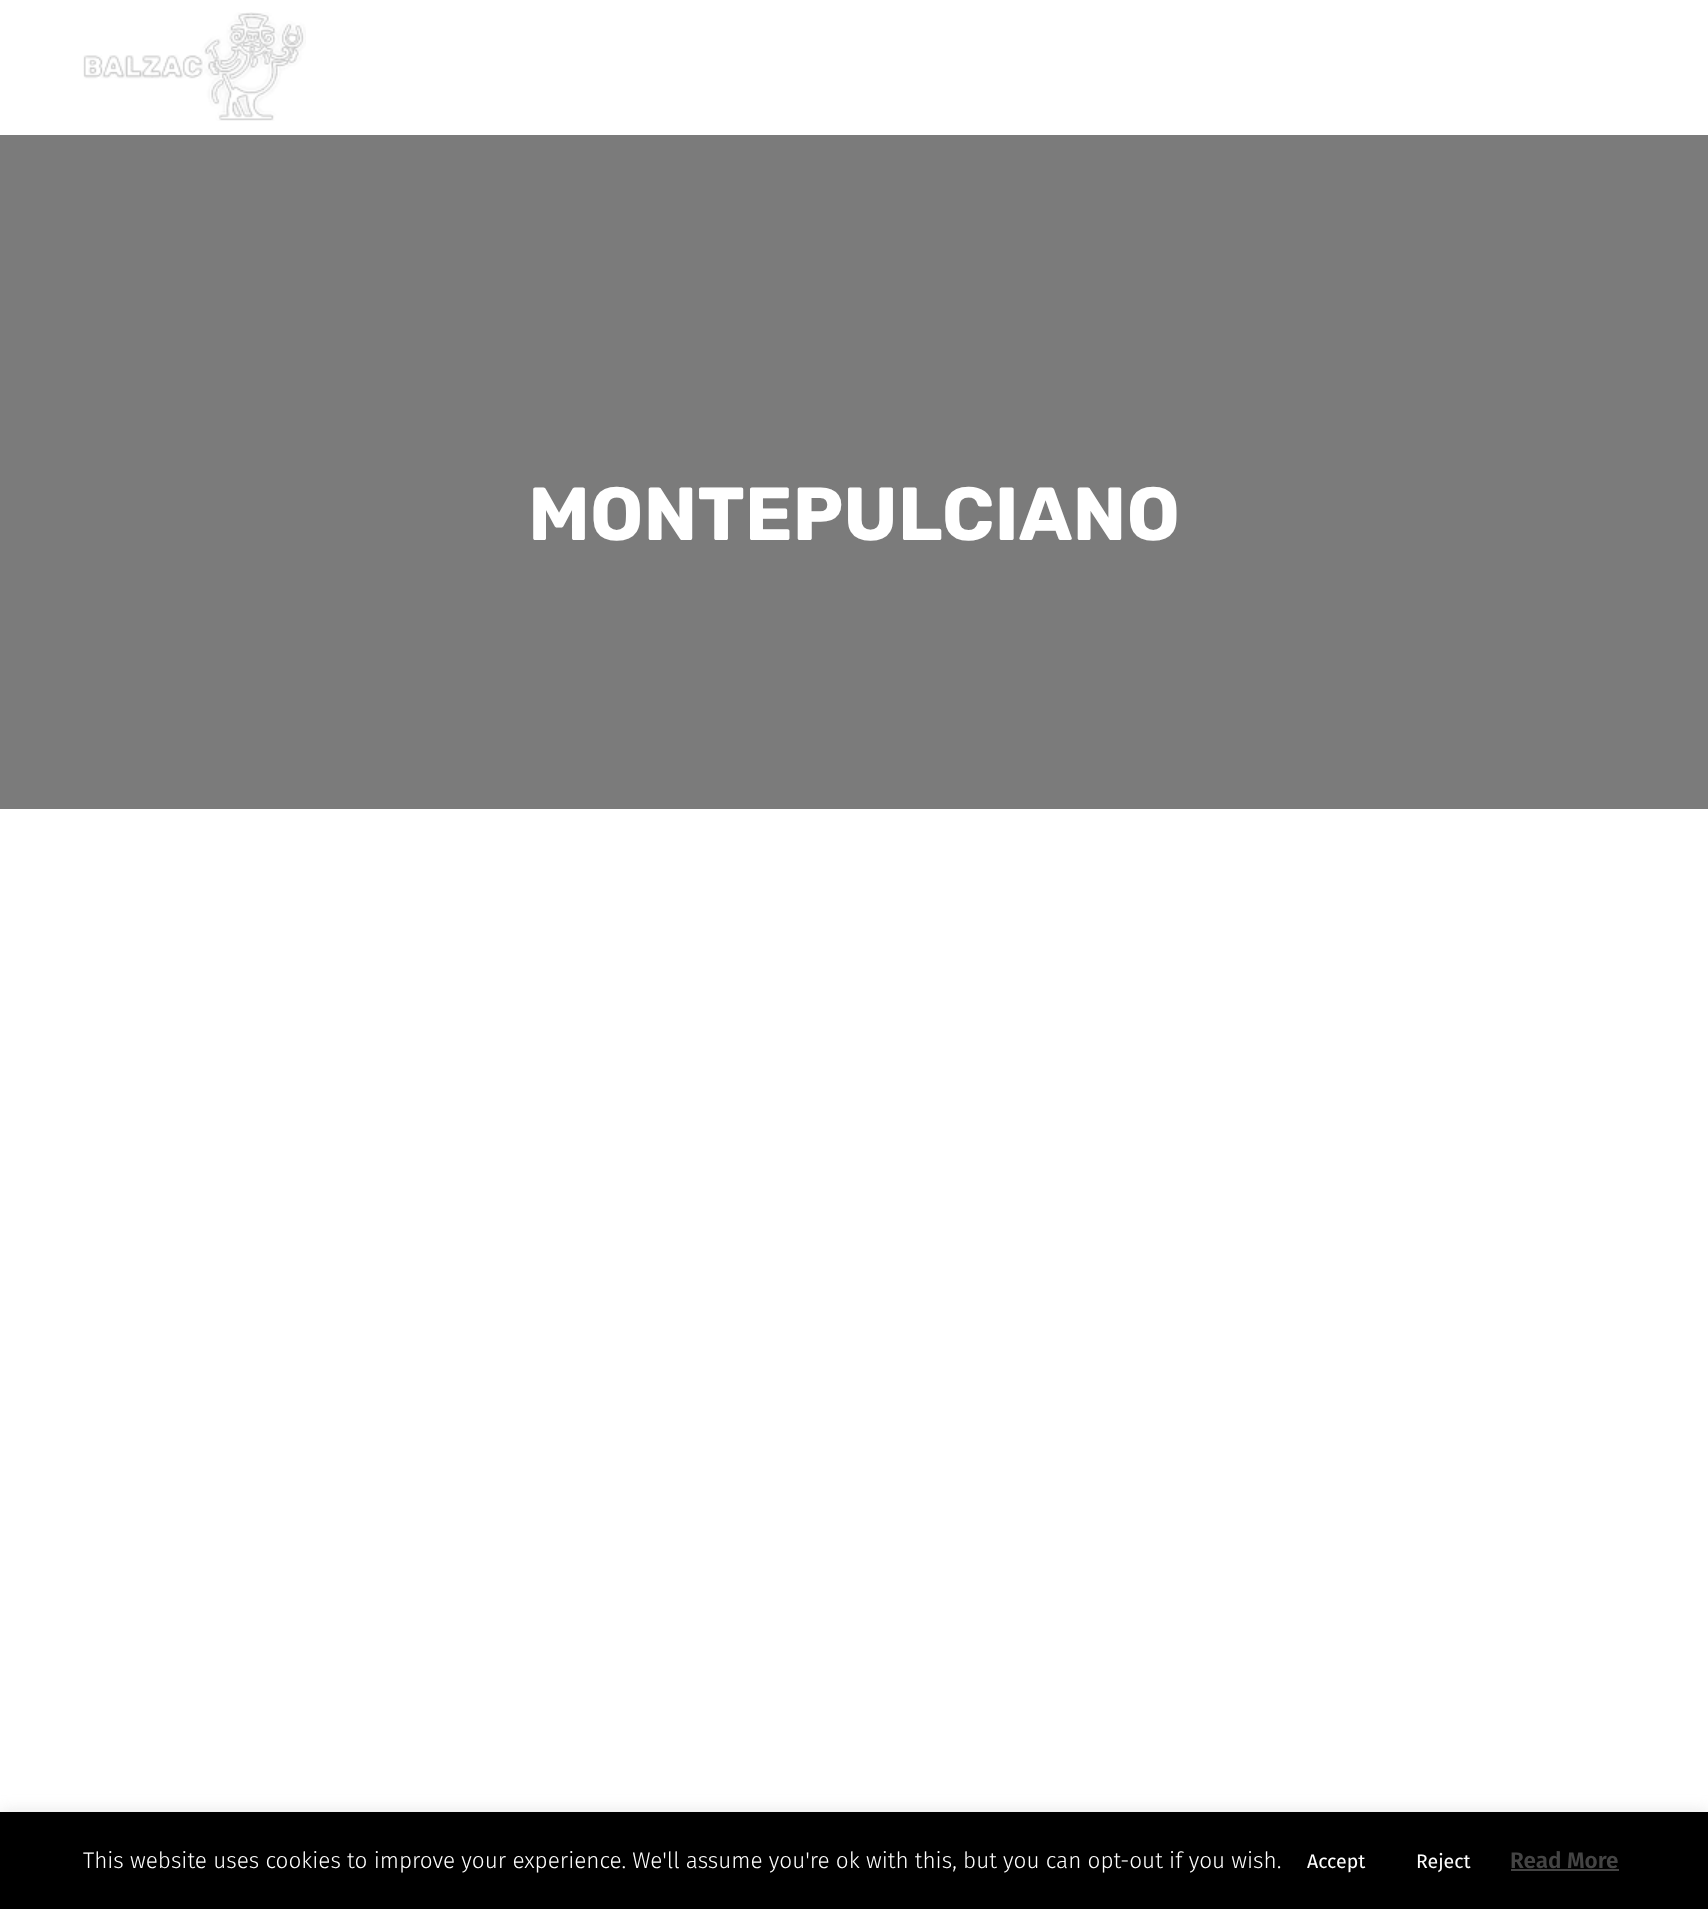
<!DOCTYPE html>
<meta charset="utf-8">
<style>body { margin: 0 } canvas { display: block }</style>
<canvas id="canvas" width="1708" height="1909"></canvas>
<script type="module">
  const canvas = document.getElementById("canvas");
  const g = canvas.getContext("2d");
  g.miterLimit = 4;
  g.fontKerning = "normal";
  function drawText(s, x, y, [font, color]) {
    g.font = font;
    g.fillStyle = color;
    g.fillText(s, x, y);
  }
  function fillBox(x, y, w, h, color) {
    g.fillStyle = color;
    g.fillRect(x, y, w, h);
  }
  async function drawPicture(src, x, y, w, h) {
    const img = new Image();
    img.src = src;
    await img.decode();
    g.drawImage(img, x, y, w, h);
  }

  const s1 = ["bold 75px Rubik", "#FFFFFF"];
  const s2 = ["300 22.5px Fira Sans", "#FFFFFF"];
  const s3 = ["19.5px Fira Sans", "#FFFFFF"];
  const s4 = ["600 22.5px Fira Sans", "#444444"];

  fillBox(0, 0, 1708, 1909, "#FFFFFF");
  await drawPicture("pic1.png", 83, 12, 223, 109);
  fillBox(0, 135, 1708, 674, "#7B7B7B");
  drawText("MONTEPULCIANO", 528, 540, s1);
  g.fillStyle = "rgba(172, 171, 171, 0.3)";
  g.filter = "blur(7.5px)";
  g.beginPath();
  g.rect(0, 1811, 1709, 97);
  g.fill();
  g.filter = "none";
  fillBox(0, 1812, 1708, 97, "#000000");
  drawText("This website uses cookies to improve your experience. We'll assume you're ok with this, but you can opt-out if you wish.", 83, 1868, s2);
  drawText("Accept", 1307, 1868, s3);
  drawText("Reject", 1416, 1868, s3);
  drawText("Read More", 1510, 1868, s4);
  fillBox(1511, 1869, 108, 2, "#444444");
</script>
